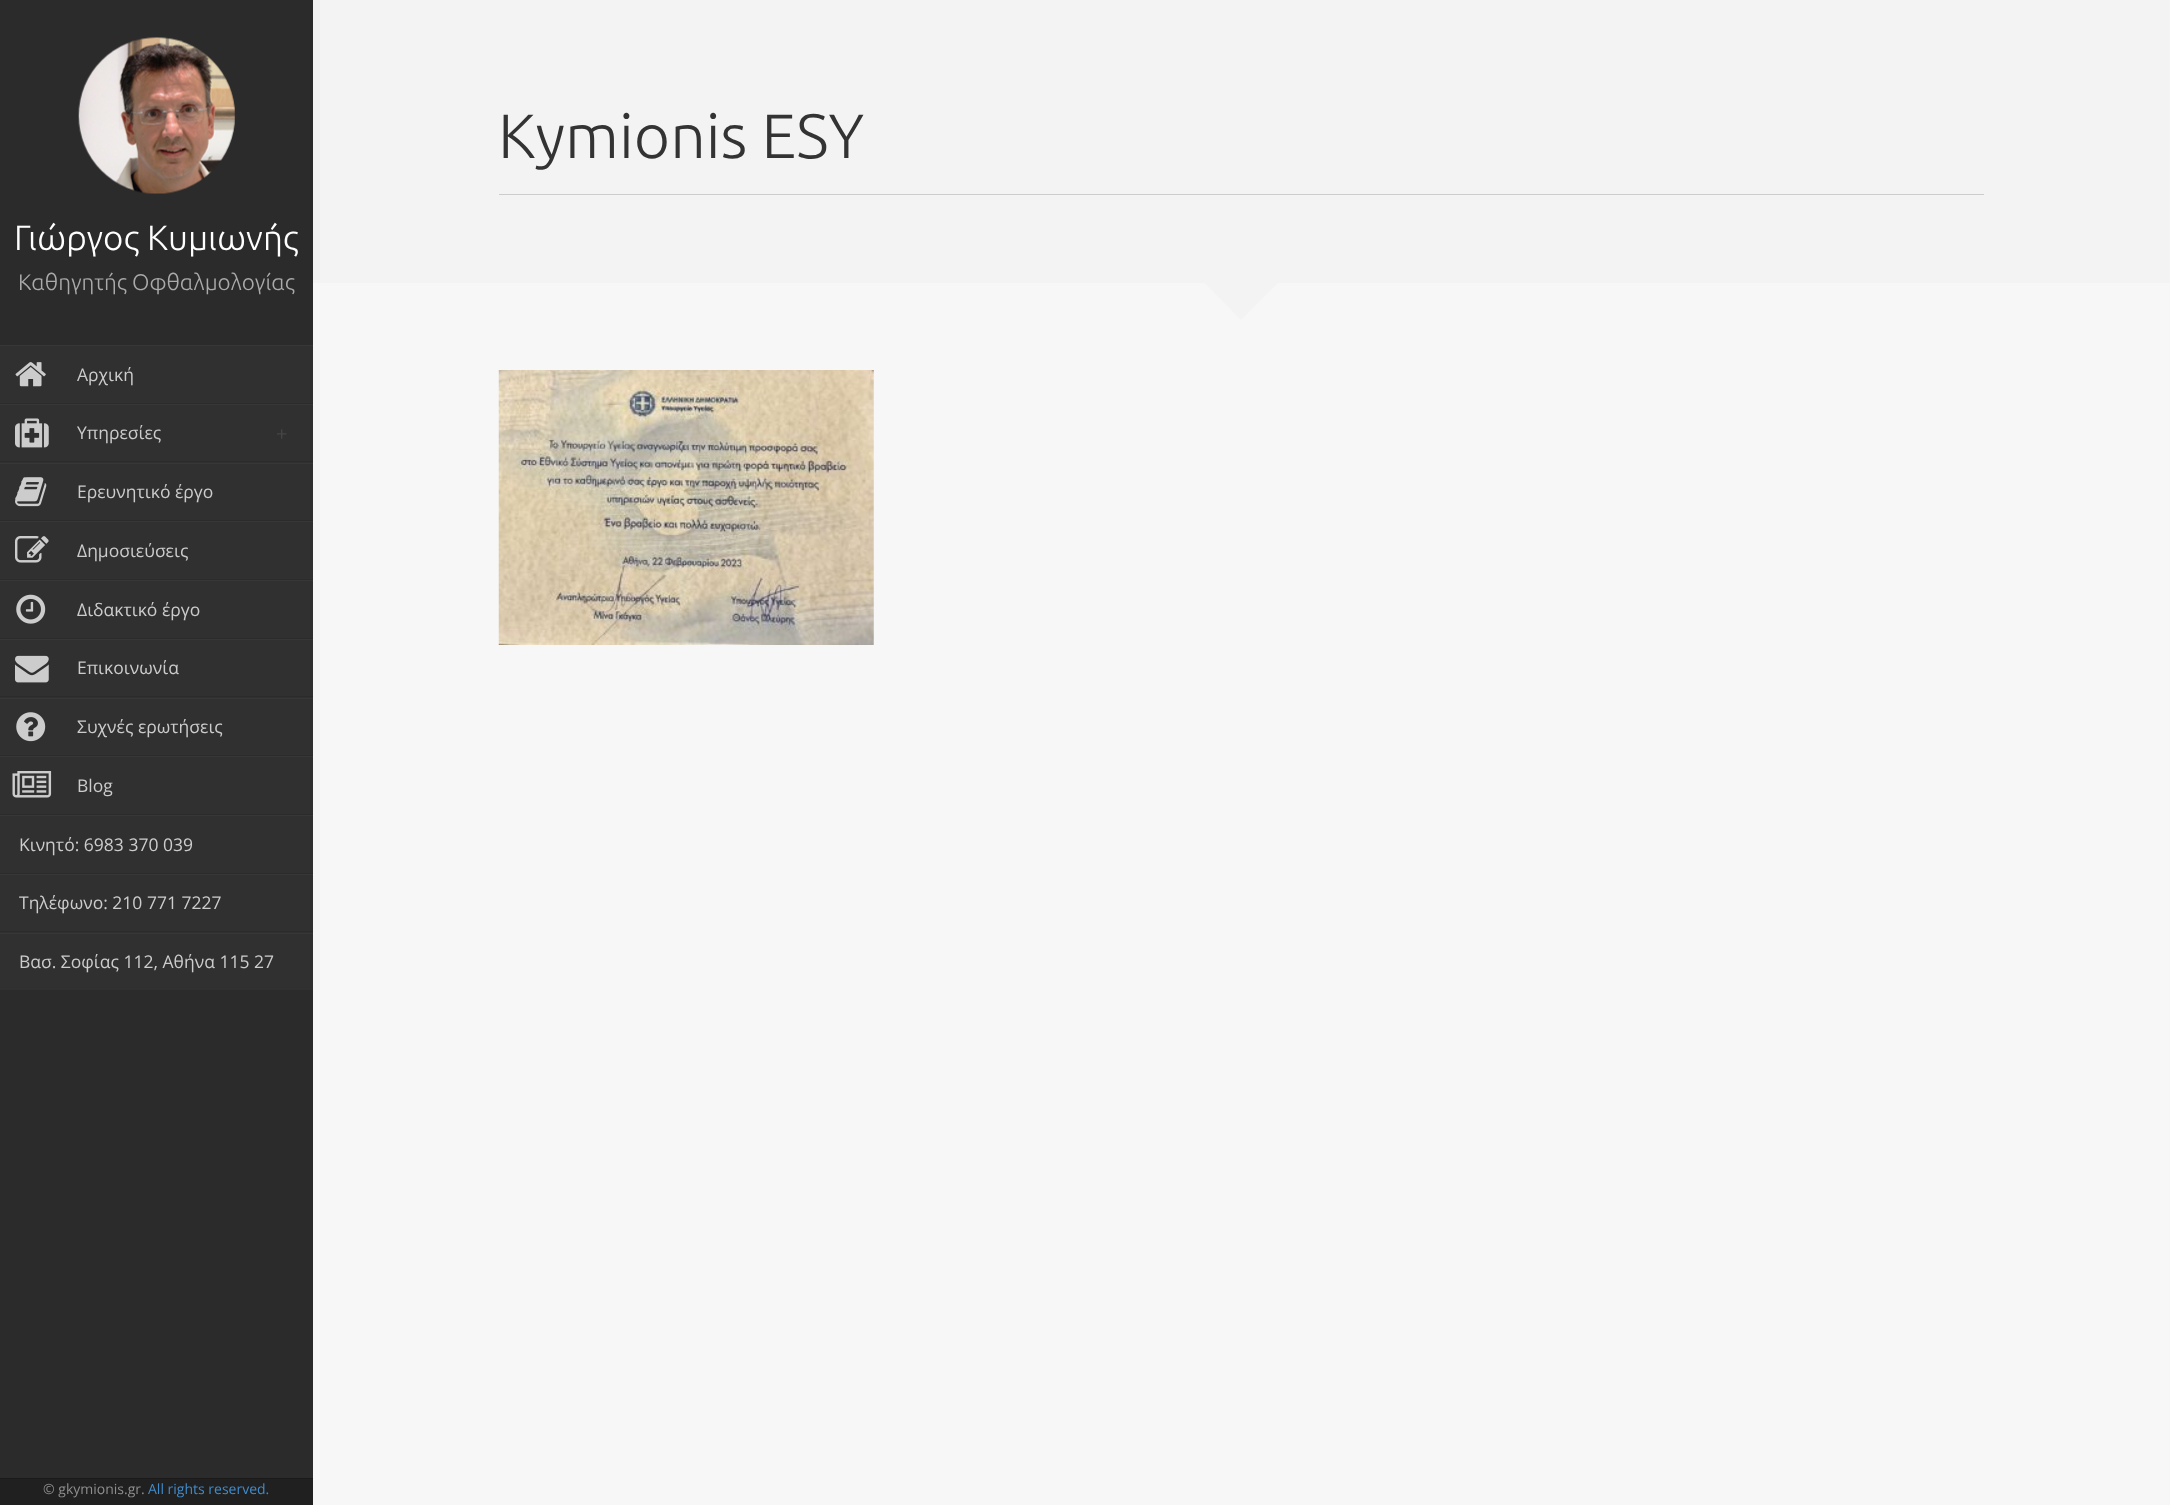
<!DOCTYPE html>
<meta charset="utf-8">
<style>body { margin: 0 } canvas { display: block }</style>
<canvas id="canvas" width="2170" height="1505"></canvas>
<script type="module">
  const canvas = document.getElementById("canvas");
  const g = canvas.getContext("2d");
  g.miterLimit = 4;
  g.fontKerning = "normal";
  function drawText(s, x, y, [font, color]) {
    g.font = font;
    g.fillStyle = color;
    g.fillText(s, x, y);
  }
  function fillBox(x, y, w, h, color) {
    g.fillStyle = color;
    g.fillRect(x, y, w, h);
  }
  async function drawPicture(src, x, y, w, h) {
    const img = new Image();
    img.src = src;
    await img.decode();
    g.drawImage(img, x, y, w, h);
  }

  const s1 = ["300 62.5px Ubuntu", "#333333"];
  const s2 = ["300 35px Ubuntu", "#FFFFFF"];
  const s3 = ["300 22.5px Ubuntu", "#AAAAAA"];
  const s4 = ["17.5px Open Sans", "#CCCCCC"];
  const s5 = ["20px Open Sans", "#454545"];
  const s6 = ["14px Open Sans", "#8E8E8E"];
  const s7 = ["14px Open Sans", "#428BCA"];

  fillBox(0, 0, 2170, 1505, "#2B2B2B");
  fillBox(313, 283, 1857, 1222, "#F7F7F7");
  fillBox(313, 0, 1857, 283, "#F3F3F3");
  fillBox(499, 194, 1485, 1, "#CCCCCC");
  drawText("Kymionis ESY", 498, 158, s1);
  g.fillStyle = "#F3F3F3";
  g.beginPath();
  g.moveTo(1204, 282);
  g.lineTo(1279, 282);
  g.lineTo(1241, 320);
  g.closePath();
  g.fill();
  await drawPicture("pic1.png", 498, 370, 376, 275);
  await drawPicture("pic2.png", 78, 37, 158, 157);
  drawText("Γιώργος Κυμιωνής", 14, 250, s2);
  drawText("Καθηγητής Οφθαλμολογίας", 18, 290, s3);
  fillBox(0, 346, 313, 57, "#303030");
  fillBox(0, 345, 313, 1, "#373737");
  await drawPicture("pic3.png", 15, 362, 31, 25);
  drawText("Αρχική", 77, 381, s4);
  fillBox(0, 405, 313, 58, "#303030");
  fillBox(0, 404, 313, 1, "#373737");
  fillBox(0, 461, 313, 1, "#2B2B2B");
  await drawPicture("pic4.png", 15, 418, 34, 30);
  drawText("Υπηρεσίες", 77, 439, s4);
  drawText("+", 276, 441, s5);
  fillBox(0, 464, 313, 56, "#303030");
  fillBox(0, 463, 313, 1, "#373737");
  await drawPicture("pic5.png", 15, 477, 32, 30);
  drawText("Ερευνητικό έργο", 77, 498, s4);
  fillBox(0, 522, 313, 57, "#303030");
  fillBox(0, 521, 313, 1, "#373737");
  await drawPicture("pic6.png", 15, 536, 34, 27);
  drawText("Δημοσιεύσεις", 77, 557, s4);
  fillBox(0, 581, 313, 57, "#303030");
  fillBox(0, 580, 313, 1, "#373737");
  await drawPicture("pic7.png", 16, 594, 30, 30);
  drawText("Διδακτικό έργο", 77, 616, s4);
  fillBox(0, 640, 313, 58, "#303030");
  fillBox(0, 639, 313, 1, "#373737");
  fillBox(0, 696, 313, 1, "#2B2B2B");
  await drawPicture("pic8.png", 15, 655, 34, 28);
  drawText("Επικοινωνία", 77, 674, s4);
  fillBox(0, 699, 313, 56, "#303030");
  fillBox(0, 698, 313, 1, "#373737");
  await drawPicture("pic9.png", 16, 712, 30, 30);
  drawText("Συχνές ερωτήσεις", 77, 733, s4);
  fillBox(0, 757, 313, 57, "#303030");
  fillBox(0, 756, 313, 1, "#373737");
  await drawPicture("pic10.png", 12, 771, 40, 27);
  drawText("Blog", 77, 792, s4);
  fillBox(0, 816, 313, 57, "#303030");
  fillBox(0, 815, 313, 1, "#373737");
  drawText("Κινητό: 6983 370 039", 19, 851, s4);
  fillBox(0, 875, 313, 58, "#303030");
  fillBox(0, 874, 313, 1, "#373737");
  fillBox(0, 931, 313, 1, "#2B2B2B");
  drawText("Τηλέφωνο: 210 771 7227", 19, 909, s4);
  fillBox(0, 934, 313, 56, "#303030");
  fillBox(0, 933, 313, 1, "#373737");
  drawText("Βασ. Σοφίας 112, Αθήνα 115 27", 19, 968, s4);
  fillBox(0, 1479, 313, 26, "#202020");
  fillBox(0, 1478, 313, 1, "#1A1A1A");
  drawText("© gkymionis.gr.", 43, 1494, s6);
  drawText("All rights reserved.", 148, 1494, s7);
</script>
